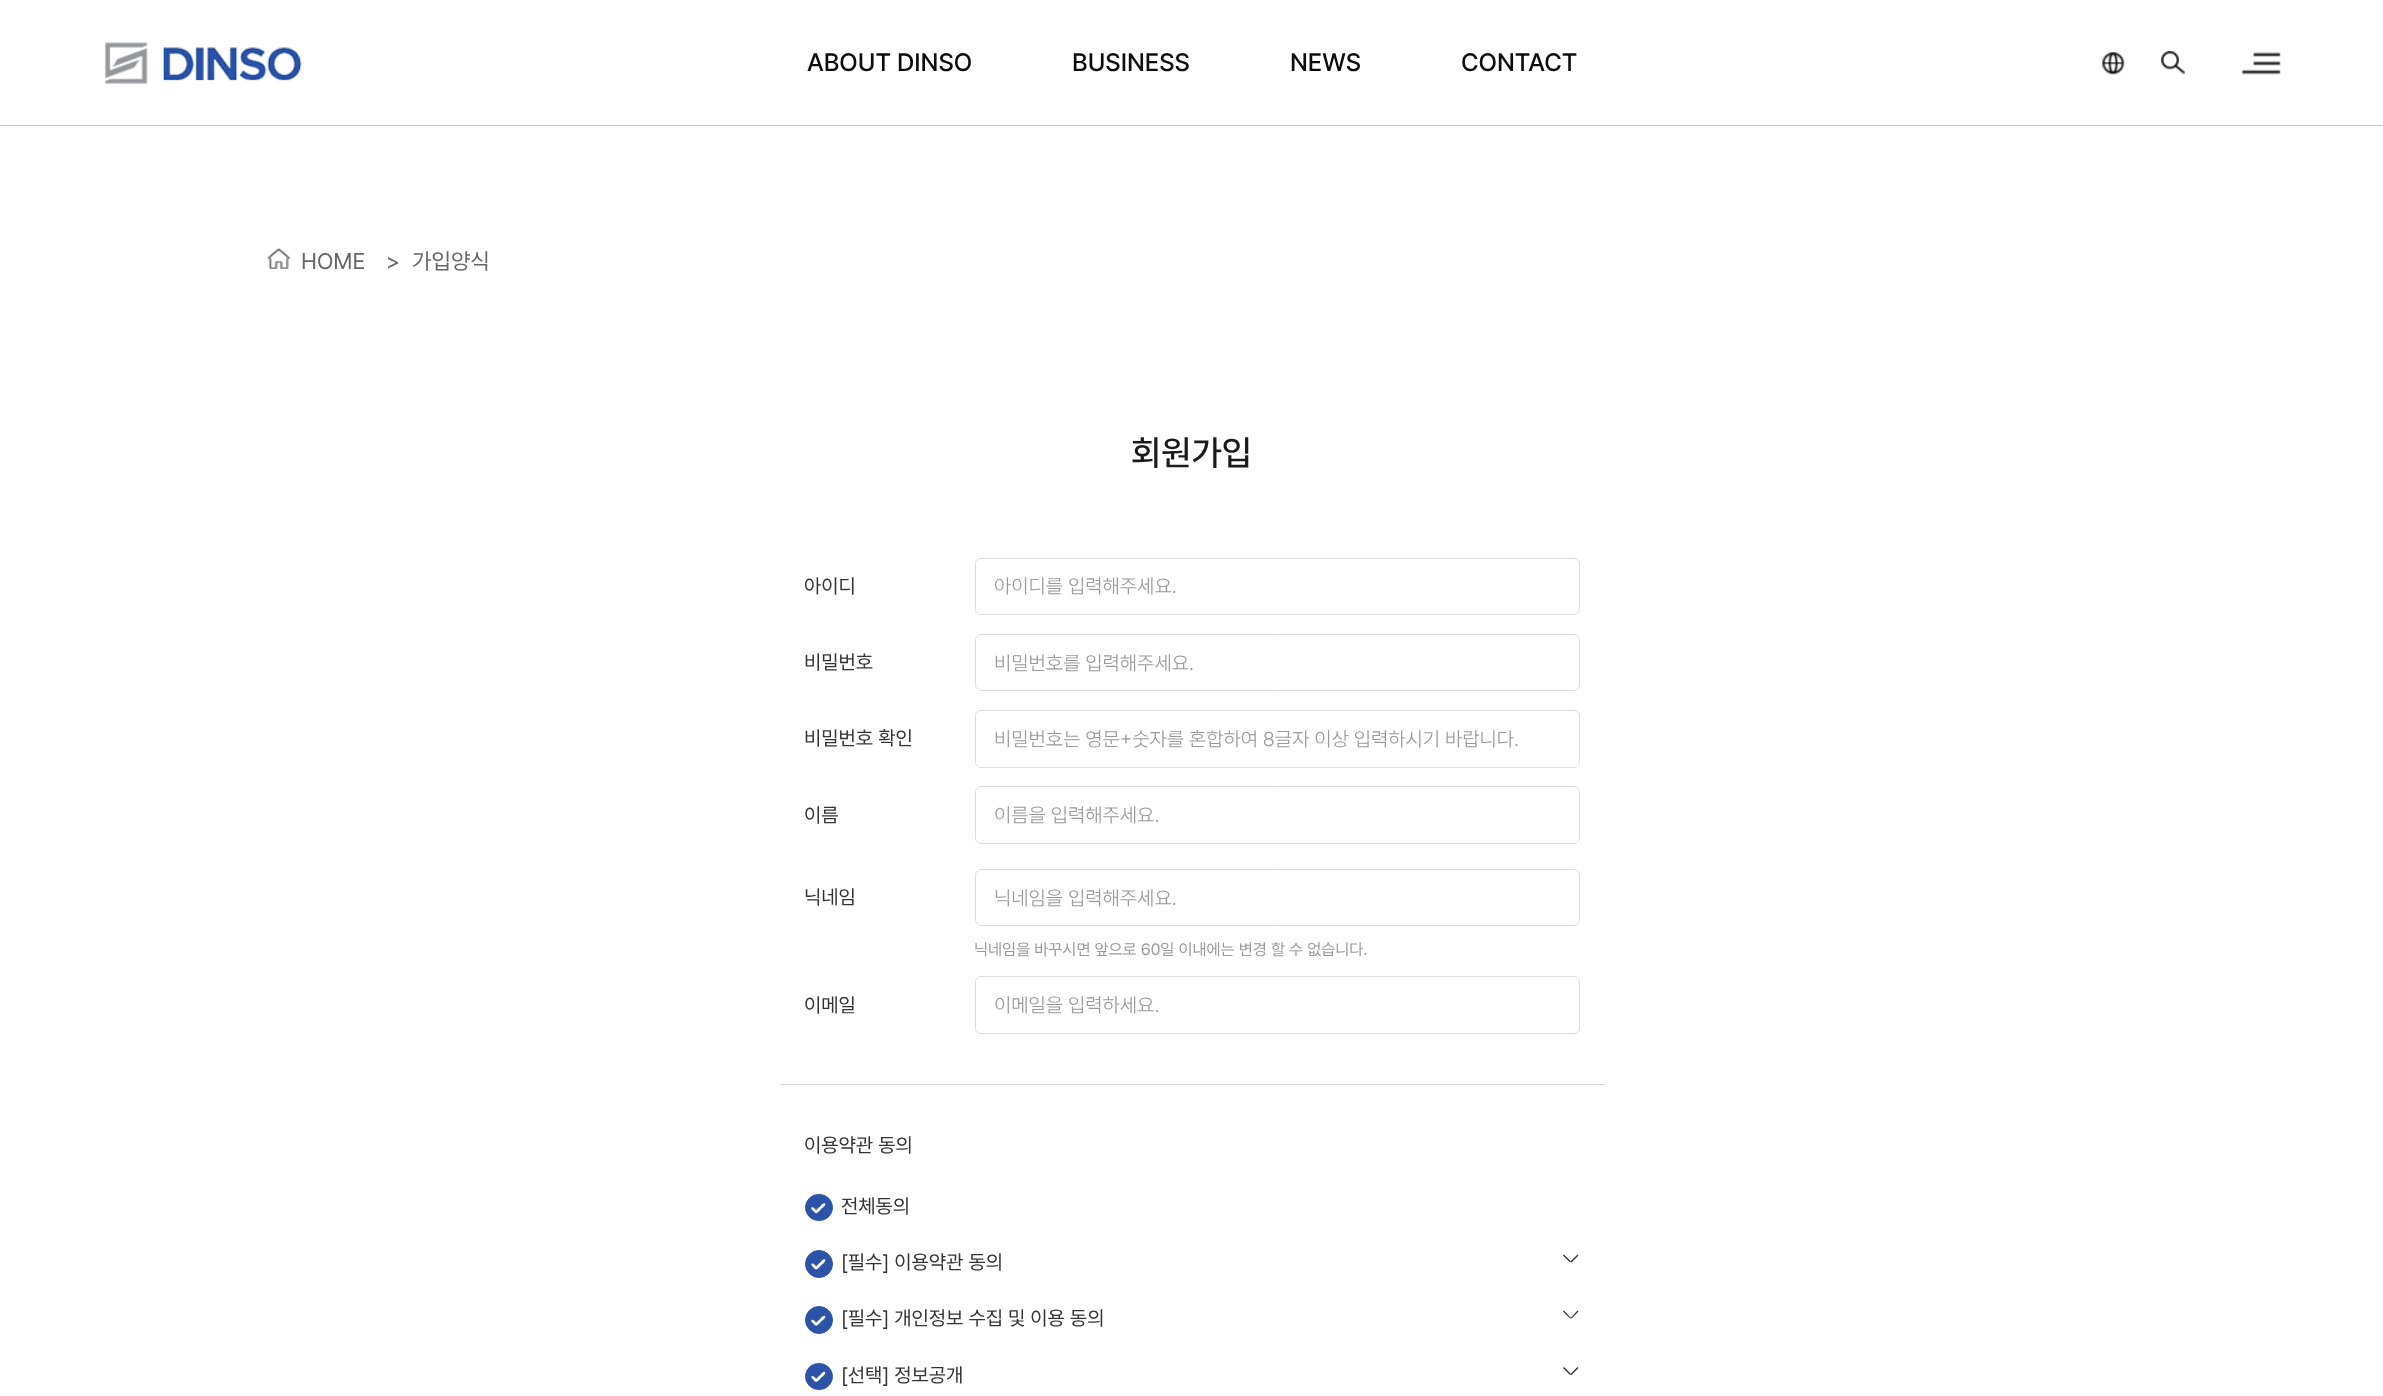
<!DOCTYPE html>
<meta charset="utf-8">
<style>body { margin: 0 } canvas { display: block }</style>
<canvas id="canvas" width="2383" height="1396"></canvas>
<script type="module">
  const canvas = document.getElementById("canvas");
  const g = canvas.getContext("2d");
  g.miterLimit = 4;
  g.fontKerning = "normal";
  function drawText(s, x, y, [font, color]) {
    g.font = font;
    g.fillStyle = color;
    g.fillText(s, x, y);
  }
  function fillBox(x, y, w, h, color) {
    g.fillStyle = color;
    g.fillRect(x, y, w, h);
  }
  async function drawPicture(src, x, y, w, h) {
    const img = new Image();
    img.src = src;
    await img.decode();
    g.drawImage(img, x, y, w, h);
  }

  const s1 = ["500 25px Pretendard", "#0C0C0C"];
  const s2 = ["22.5px Pretendard", "#666666"];
  const s3 = ["500 35px Pretendard", "#1B1B1B"];
  const s4 = ["20px Pretendard", "#333333"];
  const s5 = ["300 20px Pretendard", "#999999"];
  const s6 = ["16.25px Pretendard", "#999999"];

  fillBox(0, 0, 2383, 1396, "#FFFFFF");
  fillBox(0, 125, 2383, 1, "#CAC7C6");
  await drawPicture("pic1.png", 104, 42, 198, 42);
  await drawPicture("pic2.png", 2102, 52, 23, 23);
  await drawPicture("pic3.png", 2161, 51, 24, 24);
  await drawPicture("pic4.png", 2241, 52, 40, 23);
  drawText("ABOUT DINSO", 807, 71, s1);
  drawText("BUSINESS", 1072, 71, s1);
  drawText("NEWS", 1290, 71, s1);
  drawText("CONTACT", 1461, 71, s1);
  await drawPicture("pic5.png", 267, 248, 23, 21);
  drawText("HOME", 301, 269, s2);
  drawText(">", 386, 269, s2);
  drawText("가입양식", 412, 269, s2);
  drawText("회원가입", 1131, 465, s3);
  fillBox(780, 1084, 825, 1, "#D6D6D6");
  drawText("아이디", 804, 593, s4);
  g.beginPath();
  g.roundRect(975.5, 558.5, 604, 56, 5.5);
  g.strokeStyle = "#DDDDDD";
  g.stroke();
  drawText("아이디를 입력해주세요.", 994, 593, s5);
  drawText("비밀번호", 804, 669, s4);
  g.beginPath();
  g.roundRect(975.5, 634.5, 604, 56, 5.5);
  g.stroke();
  drawText("비밀번호를 입력해주세요.", 994, 670, s5);
  drawText("비밀번호 확인", 804, 745, s4);
  g.beginPath();
  g.roundRect(975.5, 710.5, 604, 57, 5.5);
  g.stroke();
  drawText("비밀번호는 영문+숫자를 혼합하여 8글자 이상 입력하시기 바랍니다.", 994, 746, s5);
  drawText("이름", 804, 822, s4);
  g.beginPath();
  g.roundRect(975.5, 786.5, 604, 57, 5.5);
  g.stroke();
  drawText("이름을 입력해주세요.", 994, 822, s5);
  drawText("닉네임", 804, 904, s4);
  g.beginPath();
  g.roundRect(975.5, 869.5, 604, 56, 5.5);
  g.stroke();
  drawText("닉네임을 입력해주세요.", 994, 905, s5);
  drawText("닉네임을 바꾸시면 앞으로 60일 이내에는 변경 할 수 없습니다.", 974, 955, s6);
  drawText("이메일", 804, 1012, s4);
  g.beginPath();
  g.roundRect(975.5, 976.5, 604, 57, 5.5);
  g.stroke();
  drawText("이메일을 입력하세요.", 994, 1012, s5);
  drawText("이용약관 동의", 804, 1152, s4);
  g.fillStyle = "#2B53A8";
  g.beginPath();
  g.roundRect(805.5, 1194.5, 27, 26, 13);
  g.fill();
  g.strokeStyle = "#2B53A8";
  g.stroke();
  g.fillStyle = "#FFFFFF";
  g.beginPath();
  g.moveTo(811.5, 1207.5);
  g.bezierCurveTo(813, 1206.5, 814.5, 1208.5, 815.5, 1209.5);
  g.bezierCurveTo(816, 1210, 818.5, 1211.5, 817, 1213);
  g.bezierCurveTo(816, 1214, 814, 1212, 813.5, 1211);
  g.bezierCurveTo(813, 1210.5, 810.5, 1209, 811.5, 1207.5);
  g.closePath();
  g.fill();
  g.beginPath();
  g.moveTo(825, 1203.5);
  g.bezierCurveTo(826.5, 1205, 822.5, 1208, 821.5, 1208.5);
  g.bezierCurveTo(820.5, 1209.5, 818, 1214, 816, 1212);
  g.bezierCurveTo(814.5, 1210.5, 819, 1207.5, 819.5, 1207);
  g.bezierCurveTo(820.5, 1206, 823.5, 1202, 825, 1203.5);
  g.closePath();
  g.fill();
  drawText("전체동의", 841, 1213, s4);
  g.fillStyle = "#2B53A8";
  g.beginPath();
  g.arc(819, 1264, 13.5, 0, Math.PI * 2);
  g.fill();
  g.stroke();
  g.fillStyle = "#FFFFFF";
  g.beginPath();
  g.moveTo(811.5, 1264);
  g.bezierCurveTo(813, 1262.5, 814.5, 1265, 815.5, 1265.5);
  g.bezierCurveTo(816, 1266.5, 818.5, 1268, 817, 1269);
  g.bezierCurveTo(816, 1270.5, 814, 1268, 813.5, 1267.5);
  g.bezierCurveTo(813, 1266.5, 810.5, 1265, 811.5, 1264);
  g.closePath();
  g.fill();
  g.beginPath();
  g.moveTo(825, 1259.5);
  g.bezierCurveTo(826.5, 1261, 822.5, 1264, 821.5, 1265);
  g.bezierCurveTo(820.5, 1265.5, 818, 1270, 816, 1268.5);
  g.bezierCurveTo(814.5, 1267, 819, 1264, 819.5, 1263);
  g.bezierCurveTo(820.5, 1262.5, 823.5, 1258, 825, 1259.5);
  g.closePath();
  g.fill();
  drawText("[필수] 이용약관 동의", 841, 1269, s4);
  g.beginPath();
  g.moveTo(1564, 1254.5);
  g.lineTo(1571, 1261.5);
  g.lineTo(1570, 1262.5);
  g.lineTo(1563, 1255.5);
  g.closePath();
  g.fill();
  g.beginPath();
  g.moveTo(1570.5, 1261.5);
  g.lineTo(1577.5, 1254.5);
  g.lineTo(1578.5, 1255.5);
  g.lineTo(1571.5, 1262.5);
  g.closePath();
  g.fill();
  g.fillStyle = "#2B53A8";
  g.beginPath();
  g.arc(819, 1320, 13.5, 0, Math.PI * 2);
  g.fill();
  g.stroke();
  g.fillStyle = "#FFFFFF";
  g.beginPath();
  g.moveTo(811.5, 1320);
  g.bezierCurveTo(813, 1319, 814.5, 1321, 815.5, 1322);
  g.bezierCurveTo(816, 1322.5, 818.5, 1324, 817, 1325.5);
  g.bezierCurveTo(816, 1326.5, 814, 1324.5, 813.5, 1323.5);
  g.bezierCurveTo(813, 1323, 810.5, 1321.5, 811.5, 1320);
  g.closePath();
  g.fill();
  g.beginPath();
  g.moveTo(825, 1316);
  g.bezierCurveTo(826.5, 1317.5, 822.5, 1320.5, 821.5, 1321);
  g.bezierCurveTo(820.5, 1322, 818, 1326.5, 816, 1324.5);
  g.bezierCurveTo(814.5, 1323, 819, 1320, 819.5, 1319.5);
  g.bezierCurveTo(820.5, 1318.5, 823.5, 1314.5, 825, 1316);
  g.closePath();
  g.fill();
  drawText("[필수] 개인정보 수집 및 이용 동의", 841, 1325, s4);
  g.beginPath();
  g.moveTo(1564, 1310.5);
  g.lineTo(1571, 1318);
  g.lineTo(1570, 1318.5);
  g.lineTo(1563, 1311.5);
  g.closePath();
  g.fill();
  g.beginPath();
  g.moveTo(1570.5, 1318);
  g.lineTo(1577.5, 1310.5);
  g.lineTo(1578.5, 1311.5);
  g.lineTo(1571.5, 1318.5);
  g.closePath();
  g.fill();
  g.fillStyle = "#2B53A8";
  g.beginPath();
  g.roundRect(805.5, 1363.5, 27, 26, 13);
  g.fill();
  g.stroke();
  g.fillStyle = "#FFFFFF";
  g.beginPath();
  g.moveTo(811.5, 1376.5);
  g.bezierCurveTo(813, 1375, 814.5, 1377.5, 815.5, 1378);
  g.bezierCurveTo(816, 1379, 818.5, 1380.5, 817, 1381.5);
  g.bezierCurveTo(816, 1383, 814, 1380.5, 813.5, 1380);
  g.bezierCurveTo(813, 1379, 810.5, 1377.5, 811.5, 1376.5);
  g.closePath();
  g.fill();
  g.beginPath();
  g.moveTo(825, 1372);
  g.bezierCurveTo(826.5, 1373.5, 822.5, 1376.5, 821.5, 1377.5);
  g.bezierCurveTo(820.5, 1378, 818, 1382.5, 816, 1381);
  g.bezierCurveTo(814.5, 1379.5, 819, 1376.5, 819.5, 1375.5);
  g.bezierCurveTo(820.5, 1375, 823.5, 1370.5, 825, 1372);
  g.closePath();
  g.fill();
  drawText("[선택] 정보공개", 841, 1382, s4);
  g.beginPath();
  g.moveTo(1564, 1367);
  g.lineTo(1571, 1374);
  g.lineTo(1570, 1375);
  g.lineTo(1563, 1368);
  g.closePath();
  g.fill();
  g.beginPath();
  g.moveTo(1570.5, 1374);
  g.lineTo(1577.5, 1367);
  g.lineTo(1578.5, 1368);
  g.lineTo(1571.5, 1375);
  g.closePath();
  g.fill();
</script>
